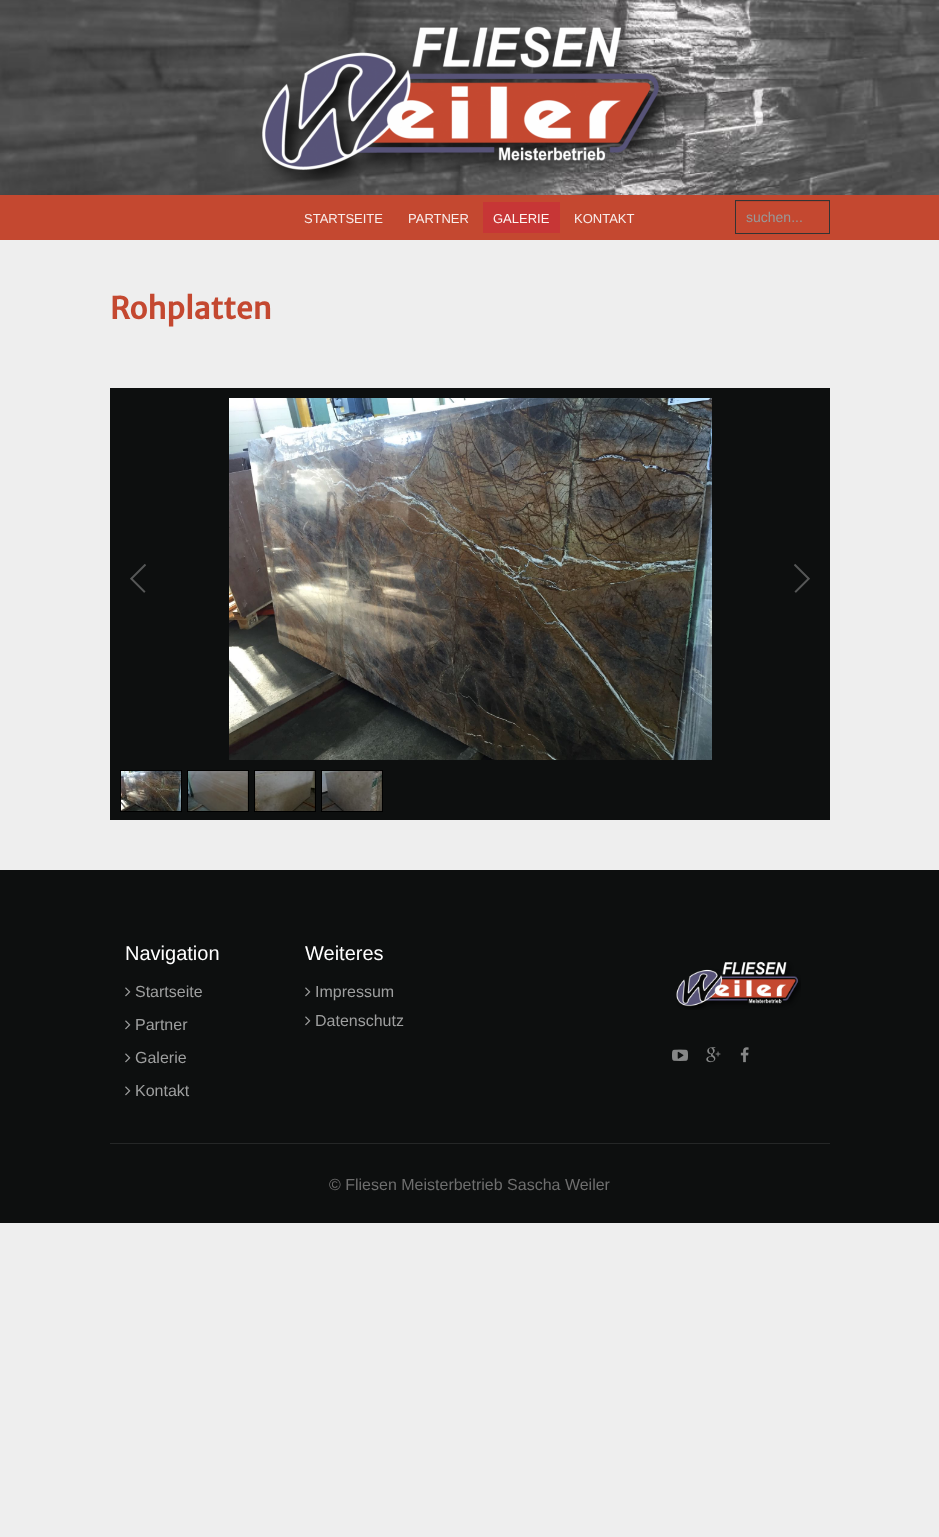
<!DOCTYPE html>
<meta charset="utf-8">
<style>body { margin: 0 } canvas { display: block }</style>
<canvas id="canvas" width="939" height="1537"></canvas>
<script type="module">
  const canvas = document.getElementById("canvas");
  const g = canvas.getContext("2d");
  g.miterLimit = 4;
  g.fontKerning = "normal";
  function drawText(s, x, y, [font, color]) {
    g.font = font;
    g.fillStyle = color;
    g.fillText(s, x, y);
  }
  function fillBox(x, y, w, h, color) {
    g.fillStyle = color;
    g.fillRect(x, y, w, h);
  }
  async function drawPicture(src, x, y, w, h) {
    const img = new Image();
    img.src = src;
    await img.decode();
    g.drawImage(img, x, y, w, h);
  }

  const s1 = ["13px Liberation Sans", "#F9EDEA"];
  const s2 = ["13px Liberation Sans", "#FFF5F2"];
  const s3 = ["14px Liberation Sans", "#999999"];
  const s4 = ["bold 30px Merriweather Sans", "#C44830"];
  const s5 = ["20px Liberation Sans", "#FFFFFF"];
  const s6 = ["16px Liberation Sans", "#9E9F9F"];
  const s7 = ["16px Liberation Sans", "#6E6E6E"];

  fillBox(0, 0, 939, 1537, "#EEEEEE");
  await drawPicture("pic1.png", 0, 0, 939, 195);
  await drawPicture("pic2.png", 262, 26, 418, 164);
  fillBox(0, 195, 939, 45, "#C44830");
  drawText("STARTSEITE", 304, 223, s1);
  drawText("PARTNER", 408, 223, s1);
  fillBox(483, 202, 77, 31, "#C73636");
  drawText("GALERIE", 493, 223, s2);
  drawText("KONTAKT", 574, 223, s1);
  fillBox(736, 201, 93, 1, "#B5432C");
  g.strokeStyle = "#333333";
  g.strokeRect(735.5, 200.5, 94, 33);
  drawText("suchen...", 746, 222, s3);
  drawText("Rohplatten", 110, 319, s4);
  fillBox(110, 388, 720, 432, "#0D0F0F");
  await drawPicture("pic3.png", 229, 398, 483, 362);
  await drawPicture("pic4.png", 130, 564, 16, 29);
  await drawPicture("pic5.png", 794, 564, 16, 29);
  fillBox(120, 770, 62, 42, "#000000");
  await drawPicture("pic6.png", 121, 771, 60, 40);
  fillBox(187, 770, 62, 42, "#000000");
  await drawPicture("pic7.png", 188, 771, 60, 40);
  fillBox(254, 770, 62, 42, "#000000");
  await drawPicture("pic8.png", 255, 771, 60, 40);
  fillBox(321, 770, 62, 42, "#000000");
  await drawPicture("pic9.png", 322, 771, 60, 40);
  fillBox(0, 870, 939, 353, "#0D0F0F");
  drawText("Navigation", 125, 960, s5);
  await drawPicture("pic10.png", 125, 987, 6, 10);
  drawText("Startseite", 135, 997, s6);
  await drawPicture("pic10.png", 125, 1020, 6, 10);
  drawText("Partner", 135, 1030, s6);
  await drawPicture("pic10.png", 125, 1053, 6, 10);
  drawText("Galerie", 135, 1063, s6);
  await drawPicture("pic10.png", 125, 1086, 6, 10);
  drawText("Kontakt", 135, 1096, s6);
  drawText("Weiteres", 305, 960, s5);
  await drawPicture("pic10.png", 305, 987, 6, 10);
  drawText("Impressum", 315, 997, s6);
  await drawPicture("pic10.png", 305, 1016, 6, 10);
  drawText("Datenschutz", 315, 1026, s6);
  await drawPicture("pic11.png", 676, 961, 125, 49);
  await drawPicture("pic12.png", 672, 1049, 16, 12);
  await drawPicture("pic13.png", 706, 1047, 15, 16);
  await drawPicture("pic14.png", 740, 1047, 9, 16);
  fillBox(110, 1143, 720, 1, "#252727");
  drawText("© Fliesen Meisterbetrieb Sascha Weiler", 329, 1190, s7);
</script>
